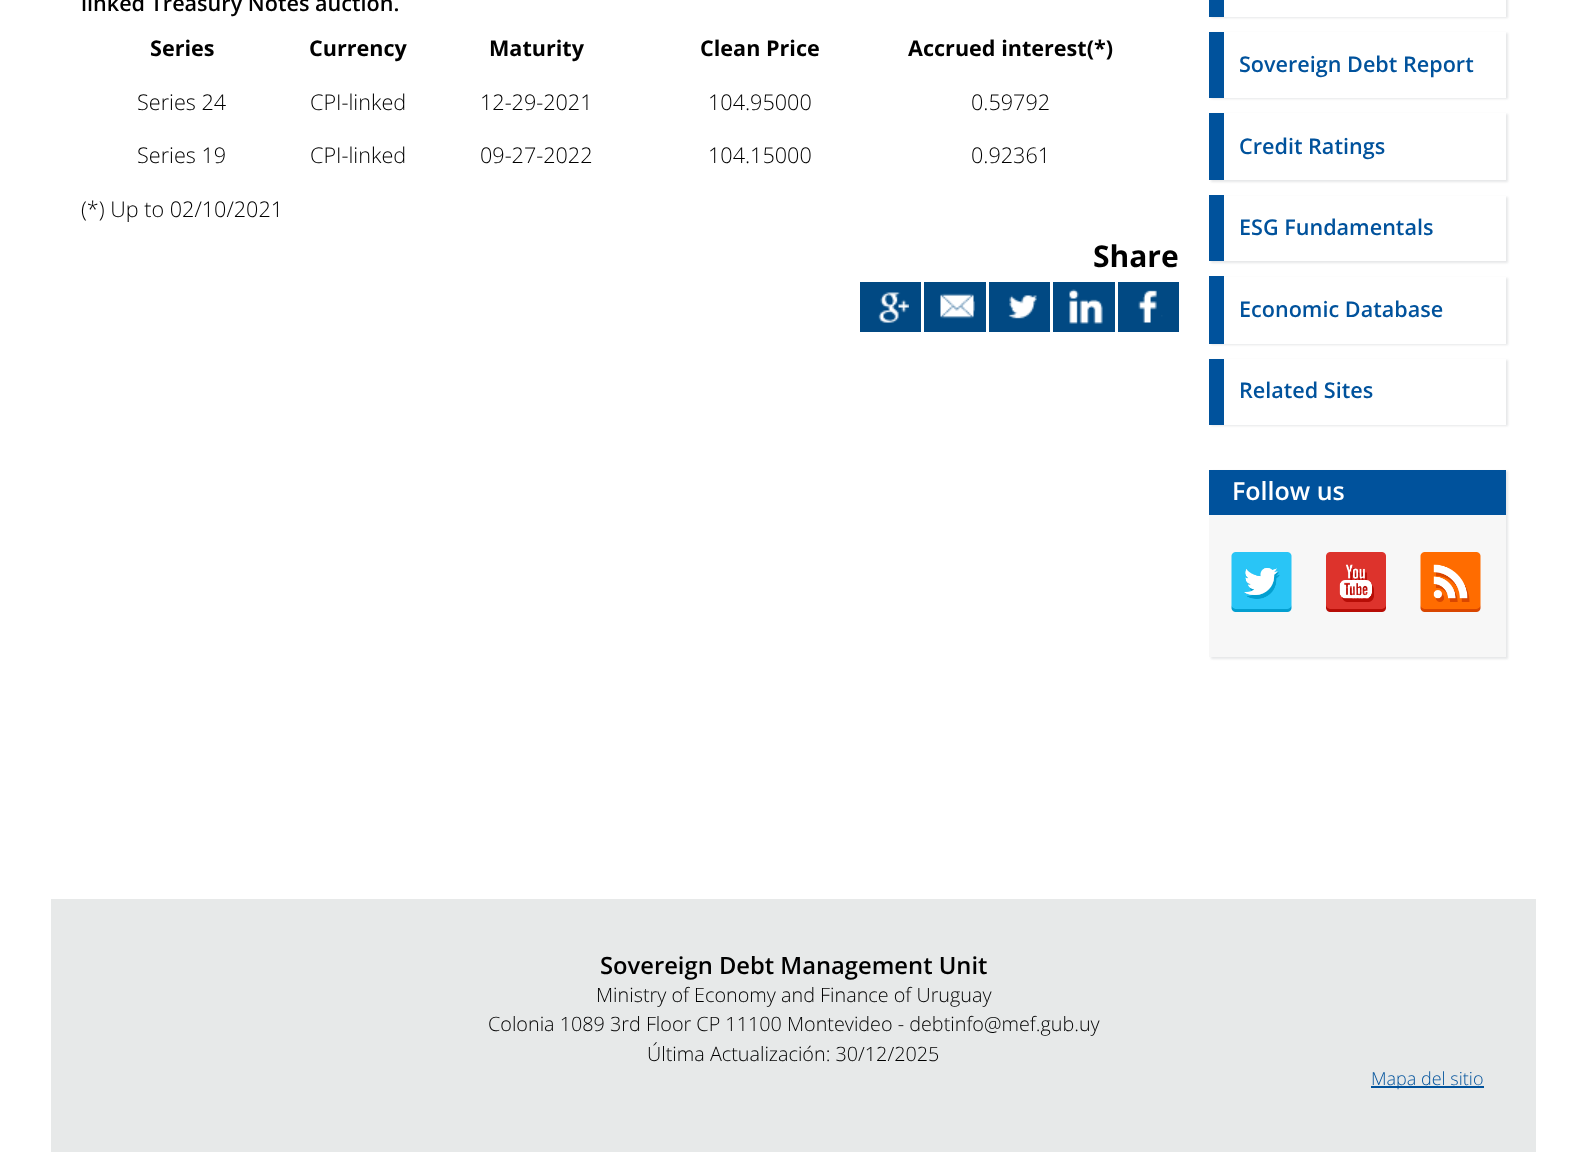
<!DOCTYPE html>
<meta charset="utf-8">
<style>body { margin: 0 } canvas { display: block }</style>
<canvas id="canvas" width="1587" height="1152"></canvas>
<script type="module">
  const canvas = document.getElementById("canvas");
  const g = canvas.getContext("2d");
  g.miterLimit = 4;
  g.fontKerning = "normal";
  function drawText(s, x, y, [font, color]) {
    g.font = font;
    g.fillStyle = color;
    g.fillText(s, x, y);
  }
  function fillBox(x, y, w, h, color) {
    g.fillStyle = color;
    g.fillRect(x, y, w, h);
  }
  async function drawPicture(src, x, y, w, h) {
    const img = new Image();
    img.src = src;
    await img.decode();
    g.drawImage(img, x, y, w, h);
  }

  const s1 = ["600 21.6px Open Sans", "#000000"];
  const s2 = ["bold 21.6px Open Sans", "#000000"];
  const s3 = ["300 21.6px Open Sans", "#000000"];
  const s4 = ["bold 30px Open Sans", "#000000"];
  const s5 = ["600 21.6px Open Sans", "#00529C"];
  const s6 = ["600 25px Open Sans", "#FFFFFF"];
  const s7 = ["600 23.75px Open Sans", "#000000"];
  const s8 = ["300 19.8px Open Sans", "#000000"];
  const s9 = ["300 18px Open Sans", "#00529C"];

  fillBox(0, 0, 1587, 1152, "#FFFFFF");
  drawText("linked Treasury Notes auction.", 81, 11, s1);
  drawText("Series", 150, 56, s2);
  drawText("Currency", 309, 56, s2);
  drawText("Maturity", 489, 56, s2);
  drawText("Clean Price", 700, 56, s2);
  drawText("Accrued interest(*)", 908, 56, s2);
  drawText("Series 24", 137, 110, s3);
  drawText("CPI-linked", 310, 110, s3);
  drawText("12-29-2021", 480, 110, s3);
  drawText("104.95000", 708, 110, s3);
  drawText("0.59792", 971, 110, s3);
  drawText("Series 19", 137, 163, s3);
  drawText("CPI-linked", 310, 163, s3);
  drawText("09-27-2022", 480, 163, s3);
  drawText("104.15000", 708, 163, s3);
  drawText("0.92361", 971, 163, s3);
  drawText("(*) Up to 02/10/2021", 81, 217, s3);
  drawText("Share", 1093, 267, s4);
  fillBox(860, 282, 61, 50, "#014983");
  await drawPicture("pic1.png", 878, 292, 31, 31);
  fillBox(924, 282, 62, 50, "#014983");
  await drawPicture("pic2.png", 940, 293, 35, 26);
  fillBox(989, 282, 61, 50, "#014983");
  await drawPicture("pic3.png", 1008, 295, 29, 24);
  fillBox(1053, 282, 62, 50, "#014983");
  await drawPicture("pic4.png", 1069, 289, 34, 35);
  fillBox(1118, 282, 61, 50, "#014983");
  await drawPicture("pic5.png", 1138, 290, 25, 33);
  g.fillStyle = "#E6E7E8";
  g.filter = "blur(1px)";
  g.beginPath();
  g.rect(1211, -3, 297, 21);
  g.fill();
  g.filter = "none";
  fillBox(1224, 0, 282, 17, "#FFFFFF");
  fillBox(1209, 0, 15, 17, "#00529C");
  g.fillStyle = "#E6E7E8";
  g.filter = "blur(1px)";
  g.beginPath();
  g.rect(1211, 33, 297, 66);
  g.fill();
  g.filter = "none";
  fillBox(1224, 32, 282, 66, "#FFFFFF");
  fillBox(1209, 32, 15, 66, "#00529C");
  drawText("Sovereign Debt Report", 1239, 72, s5);
  g.fillStyle = "#E6E7E8";
  g.filter = "blur(1px)";
  g.beginPath();
  g.rect(1211, 114, 297, 68);
  g.fill();
  g.filter = "none";
  fillBox(1224, 113, 282, 67, "#FFFFFF");
  fillBox(1209, 113, 15, 67, "#00529C");
  drawText("Credit Ratings", 1239, 154, s5);
  g.fillStyle = "#E6E7E8";
  g.filter = "blur(1px)";
  g.beginPath();
  g.rect(1211, 197, 297, 66);
  g.fill();
  g.filter = "none";
  fillBox(1224, 196, 282, 65, "#FFFFFF");
  fillBox(1209, 195, 15, 66, "#00529C");
  drawText("ESG Fundamentals", 1239, 235, s5);
  g.fillStyle = "#E6E7E8";
  g.filter = "blur(1px)";
  g.beginPath();
  g.rect(1211, 278, 297, 67);
  g.fill();
  g.filter = "none";
  fillBox(1224, 277, 282, 67, "#FFFFFF");
  fillBox(1209, 276, 15, 68, "#00529C");
  drawText("Economic Database", 1239, 317, s5);
  g.fillStyle = "#E6E7E8";
  g.filter = "blur(1px)";
  g.beginPath();
  g.rect(1211, 360, 297, 66);
  g.fill();
  g.filter = "none";
  fillBox(1224, 359, 282, 66, "#FFFFFF");
  fillBox(1209, 359, 15, 66, "#00529C");
  drawText("Related Sites", 1239, 398, s5);
  g.fillStyle = "#E6E7E8";
  g.filter = "blur(1px)";
  g.beginPath();
  g.rect(1211, 471, 297, 188);
  g.fill();
  g.filter = "none";
  fillBox(1209, 515, 297, 142, "#F7F7F7");
  fillBox(1209, 470, 297, 45, "#00529C");
  drawText("Follow us", 1232, 500, s6);
  await drawPicture("pic6.png", 1231, 552, 61, 60);
  await drawPicture("pic7.png", 1326, 552, 60, 60);
  await drawPicture("pic8.png", 1420, 552, 61, 60);
  fillBox(51, 899, 1485, 253, "#E7E9E9");
  drawText("Sovereign Debt Management Unit", 600, 974, s7);
  drawText("Ministry of Economy and Finance of Uruguay", 596, 1002, s8);
  drawText("Colonia 1089 3rd Floor CP 11100 Montevideo - debtinfo@mef.gub.uy", 488, 1031, s8);
  drawText("Última Actualización: 30/12/2025", 647, 1061, s8);
  fillBox(1371, 1086, 113, 2, "#00529C");
  drawText("Mapa del sitio", 1371, 1085, s9);
</script>
